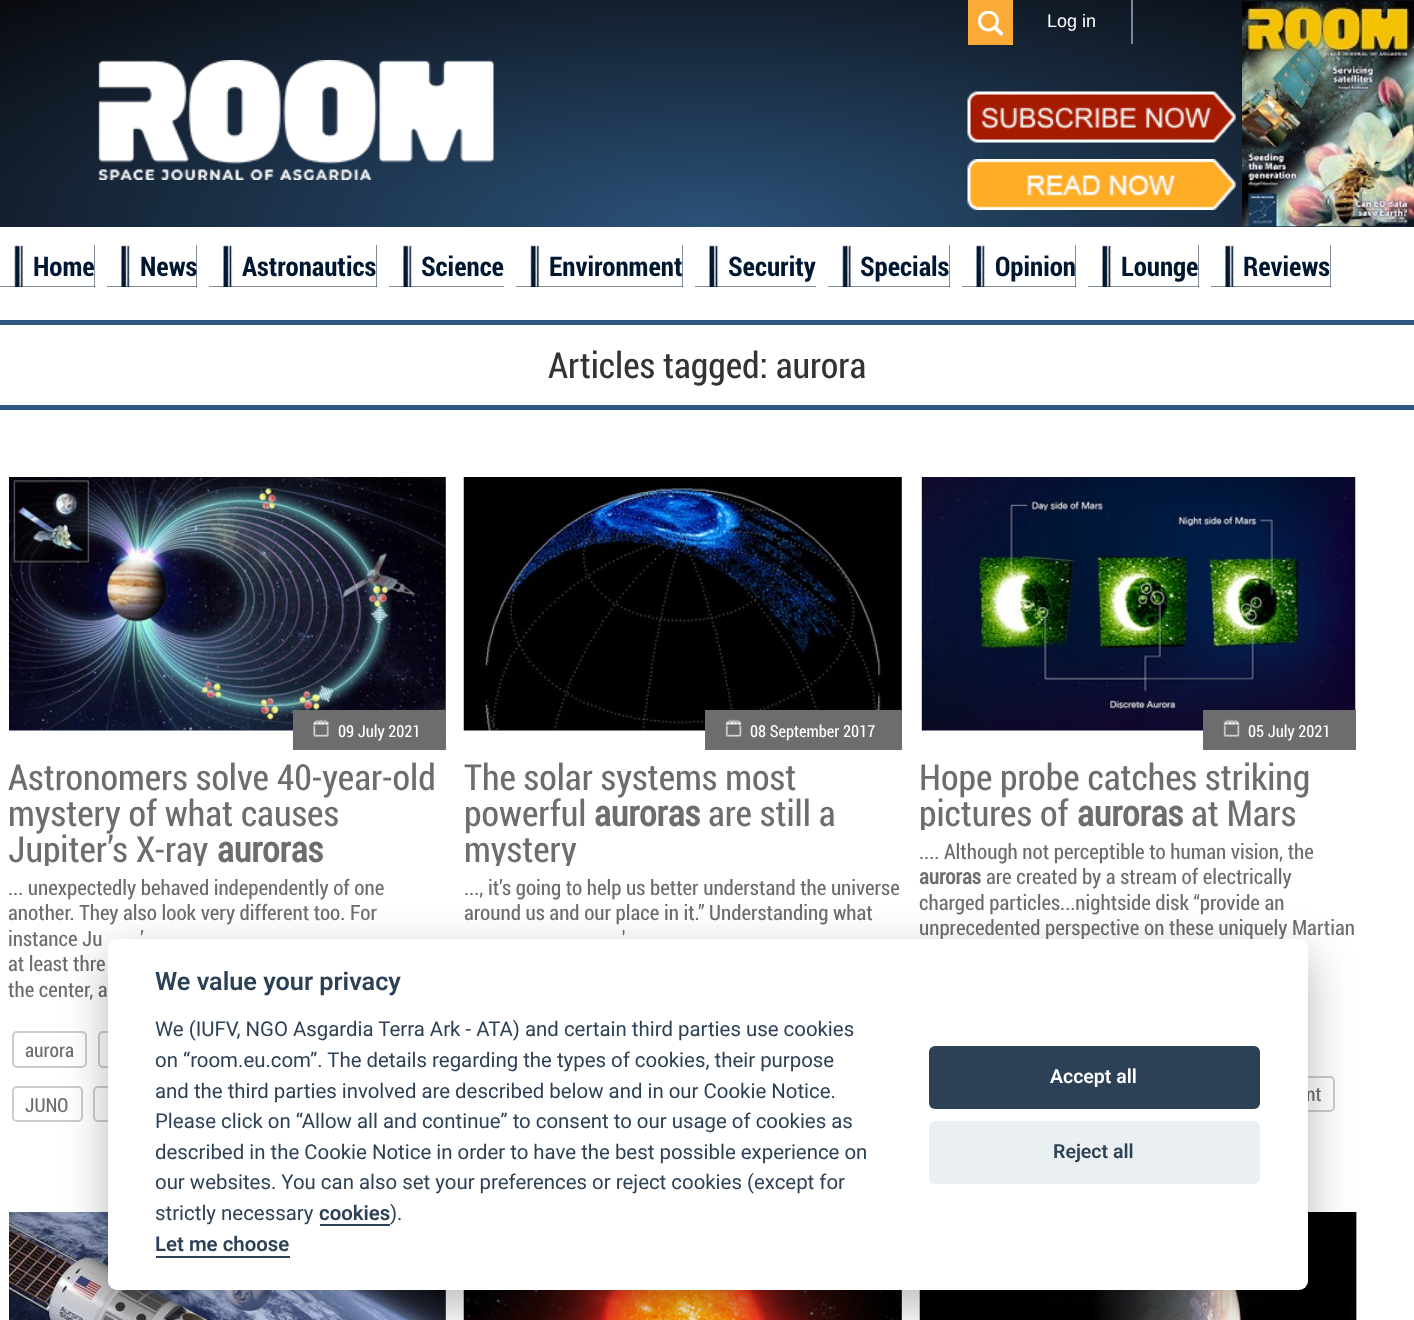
<!DOCTYPE html>
<meta charset="utf-8">
<style>body { margin: 0 } canvas { display: block }</style>
<canvas id="canvas" width="1414" height="1320"></canvas>
<script type="module">
  const canvas = document.getElementById("canvas");
  const g = canvas.getContext("2d");
  g.miterLimit = 4;
  g.fontKerning = "normal";
  function drawText(s, x, y, [font, color]) {
    g.font = font;
    g.fillStyle = color;
    g.fillText(s, x, y);
  }
  function fillBox(x, y, w, h, color) {
    g.fillStyle = color;
    g.fillRect(x, y, w, h);
  }
  function fillRounded(x, y, w, h, r, color) {
    g.fillStyle = color;
    g.beginPath();
    g.roundRect(x, y, w, h, r);
    g.fill();
  }
  async function drawPicture(src, x, y, w, h) {
    const img = new Image();
    img.src = src;
    await img.decode();
    g.drawImage(img, x, y, w, h);
  }
  let gradient;

  const s1 = ["18px Liberation Sans", "#FFFFFF"];
  const s2 = ["bold 27px Roboto Condensed", "#001731"];
  const s3 = ["36px Roboto Condensed", "#333333"];
  const s4 = ["16.5px Roboto Condensed", "#FFFFFF"];
  const s5 = ["36px Roboto Condensed", "#6D6D6D"];
  const s6 = ["bold 36px 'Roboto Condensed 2'", "#6D6D6D"];
  const s7 = ["21px Roboto Condensed", "#6D6D6D"];
  const s8 = ["19.5px Roboto Condensed", "#6D6D6D"];
  const s9 = ["bold 21px 'Roboto Condensed 2'", "#6D6D6D"];
  const s10 = ["600 25.25px Roboto", "#2D4156"];
  const s11 = ["20.4px Roboto", "#2D4156"];
  const s12 = ["600 20.4px Roboto", "#2D4156"];
  const s13 = ["600 19.5px Roboto", "#FFFFFF"];
  const s14 = ["600 19.5px Roboto", "#2D4156"];

  fillBox(0, 0, 1414, 1320, "#FFFFFF");
  gradient = g.createRadialGradient(707, 709.38, 0, 707, 709.38, 1000);
  gradient.addColorStop(0, "#2B5279");
  gradient.addColorStop(1, "#090A0F");
  g.fillStyle = gradient;
  g.beginPath();
  g.rect(0, 0, 1414, 227);
  g.save();
  g.clip();
  g.scale(1, 320 / 1000);
  g.fillRect(0, 0, 1414, 4125);
  g.restore();
  await drawPicture("pic1.png", 98, 60, 396, 120);
  await drawPicture("pic2.png", 967, 91, 269, 52);
  await drawPicture("pic3.png", 967, 159, 269, 51);
  await drawPicture("pic4.png", 1242, 1, 172, 226);
  fillBox(968, 0, 45, 45, "#FCAB38");
  await drawPicture("pic5.png", 978, 11, 26, 25);
  fillBox(1131, 0, 2, 44, "#74879C");
  drawText("Log in", 1047, 27, s1);
  fillBox(0, 245, 95, 42, "#001731");
  await drawPicture("pic6.png", 0, 245, 95, 42);
  drawText("Home", 33, 276, s2);
  fillBox(107, 245, 90, 42, "#001731");
  await drawPicture("pic7.png", 107, 245, 90, 42);
  drawText("News", 140, 276, s2);
  fillBox(209, 245, 168, 42, "#001731");
  await drawPicture("pic8.png", 209, 245, 168, 42);
  drawText("Astronautics", 242, 276, s2);
  fillBox(389, 245, 115, 42, "#001731");
  await drawPicture("pic9.png", 389, 245, 115, 42);
  drawText("Science", 421, 276, s2);
  fillBox(516, 245, 167, 42, "#001731");
  await drawPicture("pic10.png", 516, 245, 167, 42);
  drawText("Environment", 549, 276, s2);
  fillBox(695, 245, 121, 42, "#001731");
  await drawPicture("pic11.png", 695, 245, 121, 42);
  drawText("Security", 728, 276, s2);
  fillBox(828, 245, 122, 42, "#001731");
  await drawPicture("pic12.png", 828, 245, 122, 42);
  drawText("Specials", 860, 276, s2);
  fillBox(962, 245, 114, 42, "#001731");
  await drawPicture("pic13.png", 962, 245, 114, 42);
  drawText("Opinion", 995, 276, s2);
  fillBox(1088, 245, 111, 42, "#001731");
  await drawPicture("pic14.png", 1088, 245, 111, 42);
  drawText("Lounge", 1121, 276, s2);
  fillBox(1211, 245, 120, 42, "#001731");
  await drawPicture("pic15.png", 1211, 245, 120, 42);
  drawText("Reviews", 1243, 276, s2);
  fillBox(0, 320, 1414, 5, "#2D5781");
  fillBox(0, 405, 1414, 5, "#2D5781");
  drawText("Articles tagged: aurora", 548, 378, s3);
  await drawPicture("pic16.png", 9, 477, 438, 254);
  fillBox(293, 710, 153, 40, "#6D6D6D");
  await drawPicture("pic17.png", 313, 719, 16, 18);
  drawText("09 July 2021", 338, 737, s4);
  drawText("Astronomers solve 40-year-old", 8, 790, s5);
  drawText("mystery of what causes", 8, 826, s5);
  g.save();
  g.beginPath();
  g.rect(9, 758, 438, 108);
  g.clip();
  drawText("Jupiter’s X-ray", 8, 862, s5);
  g.restore();
  drawText("auroras", 217, 862, s6);
  drawText("... unexpectedly behaved independently of one", 8, 895, s7);
  drawText("another. They also look very different too. For", 8, 920, s7);
  drawText("instance Ju", 8, 946, s7);
  drawText("’", 140, 946, s7);
  drawText("at least thre", 8, 971, s7);
  drawText("the center, a", 8, 997, s7);
  g.beginPath();
  g.roundRect(13, 1032, 73, 35, 4);
  g.strokeStyle = "#CCCCCC";
  g.lineWidth = 2;
  g.stroke();
  drawText("aurora", 25, 1057, s8);
  g.beginPath();
  g.roundRect(99, 1032, 173, 35, 4);
  g.stroke();
  g.beginPath();
  g.roundRect(13, 1087, 69, 34, 4);
  g.stroke();
  drawText("JUNO", 25, 1112, s8);
  g.beginPath();
  g.roundRect(94, 1087, 78, 34, 4);
  g.stroke();
  await drawPicture("pic18.png", 463, 477, 439, 254);
  fillBox(705, 710, 197, 40, "#6D6D6D");
  await drawPicture("pic19.png", 725, 719, 17, 18);
  drawText("08 September 2017", 750, 737, s4);
  drawText("The solar systems most", 464, 790, s5);
  drawText("powerful", 464, 826, s5);
  drawText("auroras", 594, 826, s6);
  drawText("are still a", 708, 826, s5);
  g.save();
  g.beginPath();
  g.rect(464, 758, 439, 108);
  g.clip();
  drawText("mystery", 464, 862, s5);
  g.restore();
  drawText("..., it’s going to help us better understand the universe", 464, 895, s7);
  drawText("around us and our place in it.” Understanding what", 464, 920, s7);
  drawText("'", 622, 946, s7);
  await drawPicture("pic20.png", 920, 477, 436, 254);
  fillBox(1203, 710, 153, 40, "#6D6D6D");
  await drawPicture("pic19.png", 1223, 719, 17, 18);
  drawText("05 July 2021", 1248, 737, s4);
  drawText("Hope probe catches striking", 919, 790, s5);
  g.save();
  g.beginPath();
  g.rect(920, 758, 438, 72);
  g.clip();
  drawText("pictures of", 919, 826, s5);
  g.restore();
  drawText("auroras", 1077, 826, s6);
  drawText("at Mars", 1191, 826, s5);
  drawText(".... Although not perceptible to human vision, the", 919, 859, s7);
  drawText("auroras", 919, 884, s9);
  drawText("are created by a stream of electrically", 986, 884, s7);
  drawText("charged particles...nightside disk “provide an", 919, 910, s7);
  drawText("unprecedented perspective on these uniquely Martian", 919, 935, s7);
  g.beginPath();
  g.roundRect(924, 1077, 410, 34, 4);
  g.stroke();
  drawText("nt", 1306, 1101, s8);
  await drawPicture("pic21.png", 9, 1212, 438, 108);
  await drawPicture("pic22.png", 463, 1290, 439, 30);
  await drawPicture("pic23.png", 919, 1212, 438, 108);
  g.fillStyle = "rgba(2, 2, 3, 0.28)";
  g.filter = "blur(22.5px)";
  g.beginPath();
  g.roundRect(108, 954, 1200, 351, 9);
  g.fill();
  g.filter = "none";
  fillRounded(108, 939, 1200, 351, 9, "#FFFFFF");
  drawText("We value your privacy", 155, 990, s10);
  drawText("We (IUFV, NGO Asgardia Terra Ark - ATA) and certain third parties use cookies", 155, 1036, s11);
  drawText("on “room.eu.com”. The details regarding the types of cookies, their purpose", 155, 1067, s11);
  drawText("and the third parties involved are described below and in our Cookie Notice.", 155, 1098, s11);
  drawText("Please click on “Allow all and continue” to consent to our usage of cookies as", 155, 1128, s11);
  drawText("described in the Cookie Notice in order to have the best possible experience on", 155, 1159, s11);
  drawText("our websites. You can also set your preferences or reject cookies (except for", 155, 1189, s11);
  drawText("strictly necessary", 155, 1220, s11);
  drawText("cookies", 319, 1220, s12);
  fillBox(320, 1224, 70, 2, "#2D4156");
  drawText(").", 390, 1220, s11);
  drawText("Let me choose", 155, 1251, s12);
  fillBox(156, 1256, 134, 2, "#2D4156");
  fillRounded(929, 1046, 331, 63, 6, "#2D4156");
  drawText("Accept all", 1050, 1083, s13);
  fillRounded(929, 1121, 331, 63, 6, "#EAEFF2");
  drawText("Reject all", 1053, 1158, s14);
</script>
